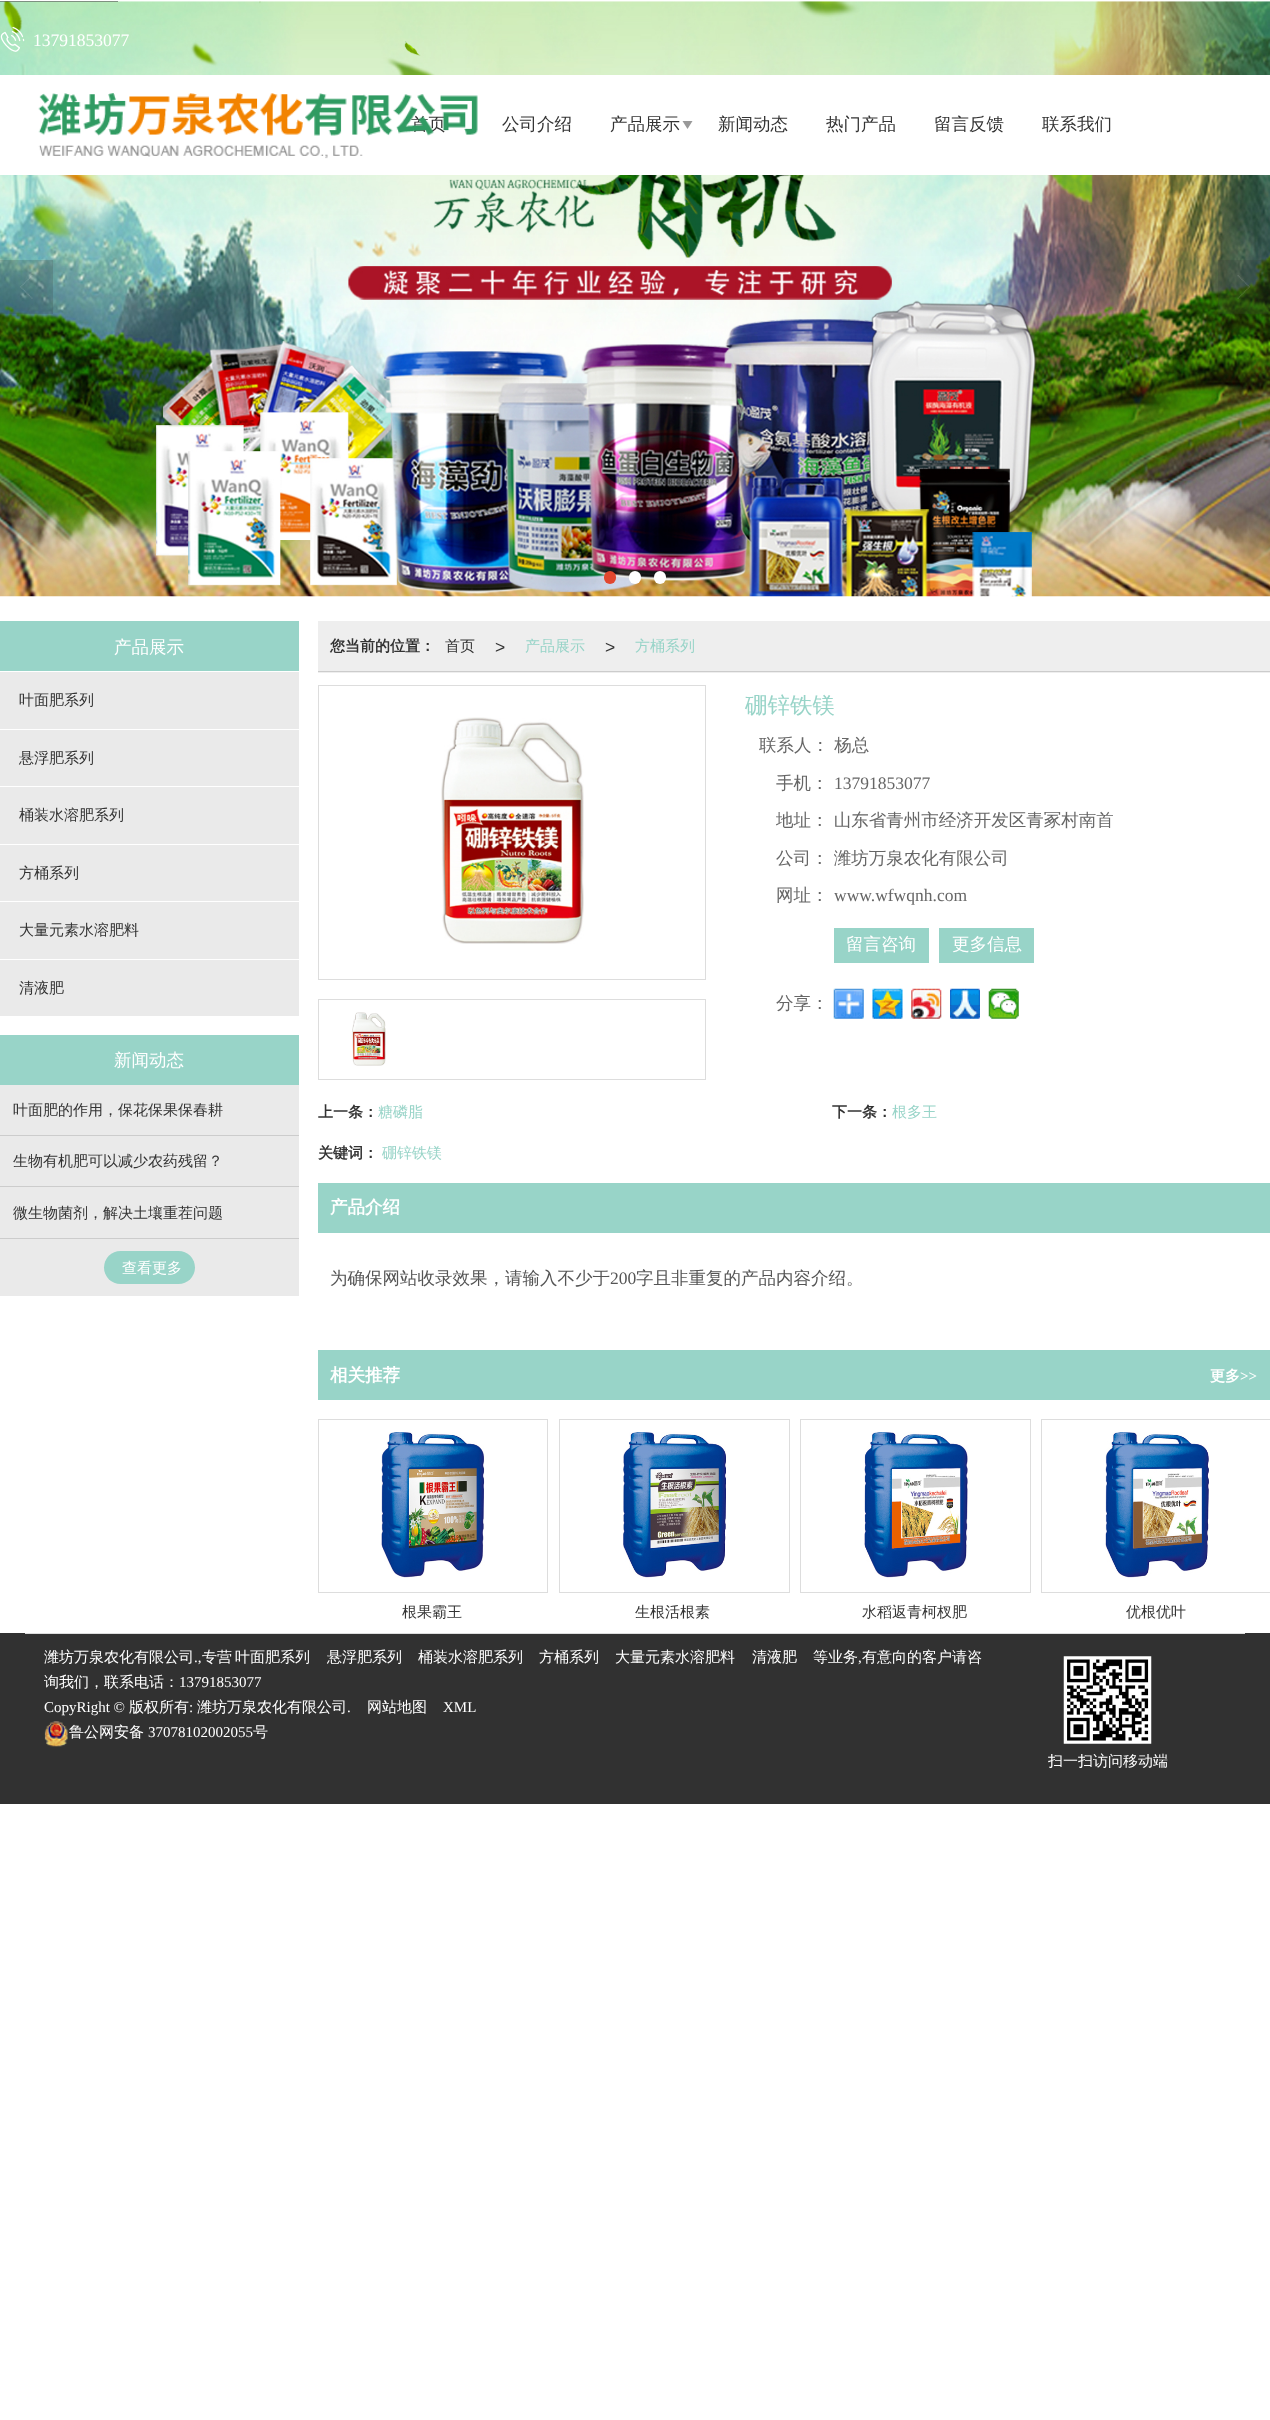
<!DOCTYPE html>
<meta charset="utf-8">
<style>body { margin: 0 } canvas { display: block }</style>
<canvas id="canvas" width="1270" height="2420"></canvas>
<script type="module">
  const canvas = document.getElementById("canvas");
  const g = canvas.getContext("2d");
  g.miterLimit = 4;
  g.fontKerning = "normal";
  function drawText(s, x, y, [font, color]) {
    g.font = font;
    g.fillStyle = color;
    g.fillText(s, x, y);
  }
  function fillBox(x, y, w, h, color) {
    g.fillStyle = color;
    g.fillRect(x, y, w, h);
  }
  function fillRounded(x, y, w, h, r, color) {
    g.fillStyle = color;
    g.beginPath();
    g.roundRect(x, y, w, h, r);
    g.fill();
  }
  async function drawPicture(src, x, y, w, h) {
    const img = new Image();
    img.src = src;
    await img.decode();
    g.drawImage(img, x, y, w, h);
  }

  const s1 = ["17.5px Liberation Serif", "#FFFFFF"];
  const s2 = ["500 17.5px WenQuanYi Zen Hei", "#333333"];
  const s3 = ["500 17.5px WenQuanYi Zen Hei", "#FFFFFF"];
  const s4 = ["500 15px WenQuanYi Zen Hei", "#333333"];
  const s5 = ["500 15px WenQuanYi Zen Hei", "#FFFFFF"];
  const s6 = ["bold 15px WenQuanYi Zen Hei", "#333333"];
  const s7 = ["17.5px Liberation Sans", "#333333"];
  const s8 = ["500 15px WenQuanYi Zen Hei", "#98D4C8"];
  const s9 = ["500 22.5px WenQuanYi Zen Hei", "#98D4C8"];
  const s10 = ["500 17.5px WenQuanYi Zen Hei", "#666666"];
  const s11 = ["17.5px Liberation Serif", "#666666"];
  const s12 = ["bold 17.5px WenQuanYi Zen Hei", "#FFFFFF"];
  const s13 = ["500 17.5px WenQuanYi Zen Hei", "#555555"];
  const s14 = ["17.5px Liberation Serif", "#555555"];
  const s15 = ["bold 15px WenQuanYi Zen Hei", "#FFFFFF"];
  const s16 = ["bold 15px Liberation Serif", "#FFFFFF"];
  const s17 = ["15px Liberation Serif", "#FFFFFF"];

  fillBox(0, 0, 1270, 2420, "#FFFFFF");
  await drawPicture("pic1.png", 0, 1, 1270, 596);
  fillBox(0, 1, 118, 1, "rgba(0, 0, 0, 0.4)");
  fillBox(0, 260, 53, 54, "rgba(57, 57, 57, 0.2)");
  await drawPicture("pic2.png", 20, 275, 13, 24);
  fillBox(1218, 260, 52, 54, "rgba(57, 57, 57, 0.2)");
  await drawPicture("pic3.png", 1237, 275, 13, 24);
  fillRounded(604, 571, 12, 13, 6, "#E1472F");
  fillRounded(629, 571, 12, 13, 6, "#FFFFFF");
  fillRounded(654, 571, 12, 13, 6, "#FFFFFF");
  fillBox(0, 75, 1270, 100, "#FFFFFF");
  await drawPicture("pic4.png", 0, 26, 25, 26);
  drawText("13791853077", 33, 46, s1);
  drawText("首页", 411, 130, s2);
  await drawPicture("pic5.png", 38, 93, 440, 66);
  drawText("公司介绍", 502, 130, s2);
  drawText("产品展示", 610, 130, s2);
  g.fillStyle = "#999999";
  g.beginPath();
  g.moveTo(682.5, 121);
  g.lineTo(692.5, 121);
  g.lineTo(687.5, 129);
  g.closePath();
  g.fill();
  drawText("新闻动态", 718, 130, s2);
  drawText("热门产品", 826, 130, s2);
  drawText("留言反馈", 934, 130, s2);
  drawText("联系我们", 1042, 130, s2);
  fillBox(0, 621, 299, 50, "#98D4C8");
  drawText("产品展示", 114, 653, s3);
  fillBox(0, 672, 299, 344, "#EAEAEA");
  drawText("叶面肥系列", 19, 705, s4);
  fillBox(0, 729, 299, 1, "#FFFFFF");
  drawText("悬浮肥系列", 19, 763, s4);
  fillBox(0, 786, 299, 1, "#FFFFFF");
  drawText("桶装水溶肥系列", 19, 820, s4);
  fillBox(0, 844, 299, 1, "#FFFFFF");
  drawText("方桶系列", 19, 878, s4);
  fillBox(0, 901, 299, 1, "#FFFFFF");
  drawText("大量元素水溶肥料", 19, 935, s4);
  fillBox(0, 959, 299, 1, "#FFFFFF");
  drawText("清液肥", 19, 993, s4);
  fillBox(0, 1035, 299, 50, "#98D4C8");
  drawText("新闻动态", 114, 1066, s3);
  fillBox(0, 1085, 299, 211, "#EAEAEA");
  fillBox(0, 1135, 299, 1, "#CCCCCC");
  drawText("叶面肥的作用，保花保果保春耕", 13, 1115, s4);
  fillBox(0, 1186, 299, 1, "#CCCCCC");
  drawText("生物有机肥可以减少农药残留？", 13, 1166, s4);
  fillBox(0, 1238, 299, 1, "#CCCCCC");
  drawText("微生物菌剂，解决土壤重茬问题", 13, 1218, s4);
  fillRounded(104, 1251, 91, 33, 16.5, "#98D4C8");
  drawText("查看更多", 122, 1273, s5);
  fillBox(318, 621, 952, 52, "#EEEEEE");
  fillBox(318, 671, 952, 1, "#CCCCCC");
  drawText("您当前的位置：", 330, 651, s6);
  drawText("首页", 445, 651, s4);
  drawText(">", 495, 653, s7);
  drawText("产品展示", 525, 651, s8);
  drawText(">", 605, 653, s7);
  drawText("方桶系列", 635, 651, s8);
  g.strokeStyle = "#DDDDDD";
  g.strokeRect(318.5, 685.5, 387, 294);
  await drawPicture("pic6.png", 441, 717, 143, 227);
  g.strokeRect(318.5, 999.5, 387, 80);
  await drawPicture("pic7.png", 352, 1012, 34, 54);
  drawText("硼锌铁镁", 745, 713, s9);
  drawText("联系人： 杨总", 759, 751, s10);
  drawText("手机：", 776, 789, s10);
  drawText("13791853077", 834, 789, s11);
  drawText("地址： 山东省青州市经济开发区青冢村南首", 776, 826, s10);
  drawText("公司： 潍坊万泉农化有限公司", 776, 864, s10);
  drawText("网址：", 776, 901, s10);
  drawText("www.wfwqnh.com", 834, 901, s11);
  fillBox(834, 928, 95, 35, "#98D4C8");
  drawText("留言咨询", 846, 950, s3);
  fillBox(939, 928, 95, 35, "#98D4C8");
  drawText("更多信息", 952, 950, s3);
  drawText("分享：", 776, 1009, s10);
  await drawPicture("pic8.png", 833, 988, 31, 31);
  await drawPicture("pic9.png", 872, 988, 31, 31);
  await drawPicture("pic10.png", 911, 988, 31, 31);
  await drawPicture("pic11.png", 950, 988, 30, 31);
  await drawPicture("pic12.png", 988, 988, 31, 31);
  drawText("上一条：", 318, 1117, s6);
  drawText("糖磷脂", 378, 1117, s8);
  drawText("下一条：", 832, 1117, s6);
  drawText("根多王", 892, 1117, s8);
  drawText("关键词：", 318, 1158, s6);
  drawText("硼锌铁镁", 382, 1158, s8);
  fillBox(318, 1183, 952, 50, "#98D4C8");
  drawText("产品介绍", 330, 1213, s12);
  drawText("为确保网站收录效果，请输入不少于", 330, 1284, s13);
  drawText("200", 610, 1284, s14);
  drawText("字且非重复的产品内容介绍。", 636, 1284, s13);
  fillBox(318, 1350, 952, 50, "#98D4C8");
  drawText("相关推荐", 330, 1381, s12);
  drawText("更多", 1210, 1381, s15);
  drawText(">>", 1240, 1381, s16);
  g.strokeRect(318.5, 1419.5, 229, 173);
  await drawPicture("pic13.png", 381, 1432, 104, 146);
  drawText("根果霸王", 402, 1617, s4);
  g.strokeRect(559.5, 1419.5, 230, 173);
  await drawPicture("pic14.png", 623, 1432, 103, 146);
  drawText("生根活根素", 635, 1617, s4);
  g.strokeRect(800.5, 1419.5, 230, 173);
  await drawPicture("pic15.png", 864, 1432, 104, 146);
  drawText("水稻返青柯杈肥", 862, 1617, s4);
  g.strokeRect(1041.5, 1419.5, 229, 173);
  await drawPicture("pic16.png", 1105, 1432, 104, 146);
  drawText("优根优叶", 1126, 1617, s4);
  fillBox(0, 1633, 1270, 171, "#313131");
  fillBox(25, 1633, 1220, 1, "#DDDDDD");
  drawText("潍坊万泉农化有限公司", 44, 1662, s5);
  drawText(".,", 194, 1662, s17);
  drawText("专营", 202, 1662, s5);
  drawText("叶面肥系列", 235, 1662, s5);
  drawText("悬浮肥系列", 327, 1662, s5);
  drawText("桶装水溶肥系列", 418, 1662, s5);
  drawText("方桶系列", 539, 1662, s5);
  drawText("大量元素水溶肥料", 615, 1662, s5);
  drawText("清液肥", 752, 1662, s5);
  drawText("等业务", 813, 1662, s5);
  drawText(",", 858, 1662, s17);
  drawText("有意向的客户请咨", 862, 1662, s5);
  drawText("询我们，联系电话：", 44, 1687, s5);
  drawText("13791853077", 179, 1687, s17);
  drawText("CopyRight ©", 44, 1712, s17);
  drawText("版权所有", 129, 1712, s5);
  drawText(":", 189, 1712, s17);
  drawText("潍坊万泉农化有限公司", 197, 1712, s5);
  drawText(".", 347, 1712, s17);
  drawText("网站地图", 367, 1712, s5);
  drawText("XML", 443, 1712, s17);
  await drawPicture("pic17.png", 44, 1721, 24, 26);
  drawText("鲁公网安备", 69, 1737, s5);
  drawText("37078102002055", 148, 1737, s17);
  drawText("号", 253, 1737, s5);
  await drawPicture("pic18.png", 1063, 1656, 89, 88);
  drawText("扫一扫访问移动端", 1048, 1766, s5);
</script>
